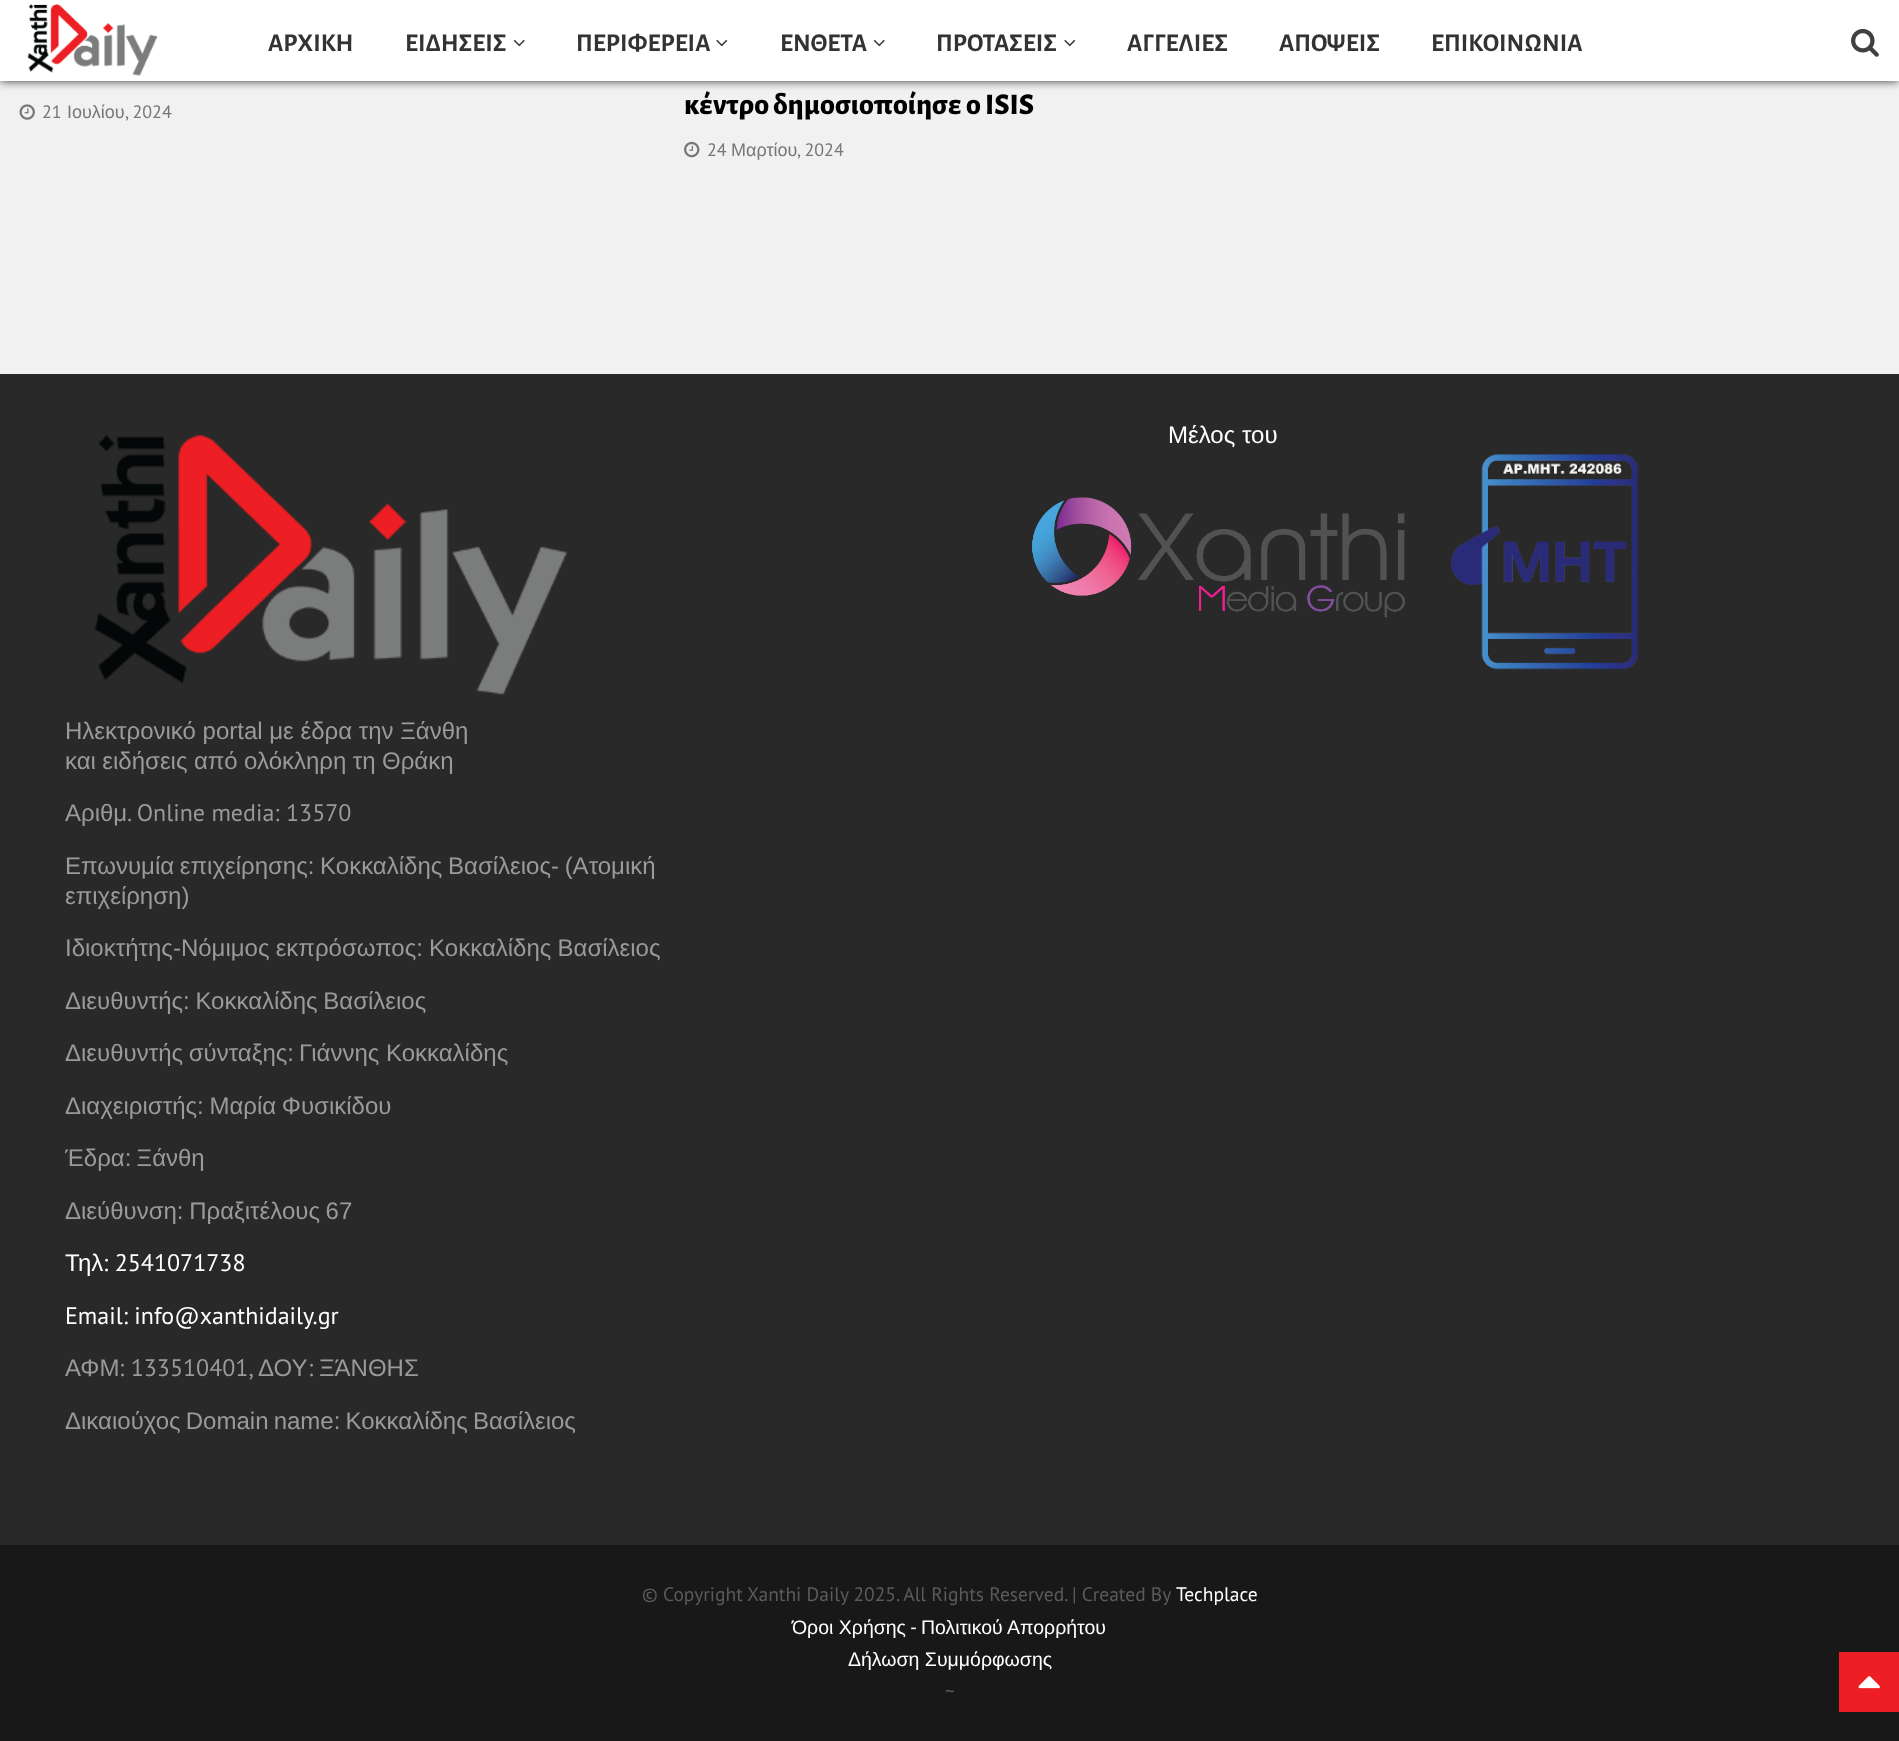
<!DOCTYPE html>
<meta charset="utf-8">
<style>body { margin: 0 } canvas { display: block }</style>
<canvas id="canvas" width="1899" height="1741"></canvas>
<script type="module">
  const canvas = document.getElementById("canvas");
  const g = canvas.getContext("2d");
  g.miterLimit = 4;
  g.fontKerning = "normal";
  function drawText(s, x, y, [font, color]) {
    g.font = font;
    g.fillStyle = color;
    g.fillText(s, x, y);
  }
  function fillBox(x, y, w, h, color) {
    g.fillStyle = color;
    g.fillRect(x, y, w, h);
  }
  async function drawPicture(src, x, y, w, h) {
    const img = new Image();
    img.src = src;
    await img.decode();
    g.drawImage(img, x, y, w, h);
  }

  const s1 = ["bold 25.5px Alegreya Sans", "#333333"];
  const s2 = ["18px PT Sans", "#777777"];
  const s3 = ["18px Liberation Sans", "#777777"];
  const s4 = ["800 30px Alegreya Sans", "#000000"];
  const s5 = ["24px Liberation Sans", "#FFFFFF"];
  const s6 = ["24px Liberation Sans", "#9A9A9A"];
  const s7 = ["24px PT Sans", "#9A9A9A"];
  const s8 = ["24px PT Sans", "#FFFFFF"];
  const s9 = ["19.5px PT Sans", "#5B5B5B"];
  const s10 = ["19.5px PT Sans", "#FFFFFF"];
  const s11 = ["19.5px Liberation Sans", "#FFFFFF"];

  fillBox(0, 0, 1899, 1741, "#F1F1F1");
  g.fillStyle = "#333333";
  g.filter = "blur(5px)";
  g.beginPath();
  g.rect(0, 0, 1899, 81);
  g.fill();
  g.filter = "none";
  fillBox(0, 0, 1899, 81, "#FFFFFF");
  await drawPicture("pic1.png", 27, 4, 131, 72);
  drawText("ΑΡΧΙΚΗ", 268, 51, s1);
  drawText("ΕΙΔΗΣΕΙΣ", 405, 51, s1);
  await drawPicture("pic2.png", 513, 39, 12, 8);
  drawText("ΠΕΡΙΦΕΡΕΙΑ", 576, 51, s1);
  await drawPicture("pic3.png", 716, 39, 12, 8);
  drawText("ΕΝΘΕΤΑ", 780, 51, s1);
  await drawPicture("pic2.png", 873, 39, 12, 8);
  drawText("ΠΡΟΤΑΣΕΙΣ", 936, 51, s1);
  await drawPicture("pic3.png", 1064, 39, 12, 8);
  drawText("ΑΓΓΕΛΙΕΣ", 1127, 51, s1);
  drawText("ΑΠΟΨΕΙΣ", 1279, 51, s1);
  drawText("ΕΠΙΚΟΙΝΩΝΙΑ", 1431, 51, s1);
  await drawPicture("pic4.png", 1851, 28, 28, 29);
  await drawPicture("pic5.png", 19, 104, 16, 16);
  drawText("21", 42, 118, s2);
  drawText("Ιουλίου", 67, 118, s3);
  drawText(", 2024", 125, 118, s2);
  drawText("κέντρο δημοσιοποίησε ο ISIS", 684, 114, s4);
  await drawPicture("pic6.png", 684, 141, 16, 17);
  drawText("24", 707, 156, s2);
  drawText("Μαρτίου", 731, 156, s3);
  drawText(", 2024", 797, 156, s2);
  fillBox(0, 374, 1899, 1171, "#292929");
  drawText("Μέλος του", 1168, 443, s5);
  await drawPicture("pic7.png", 1032, 497, 373, 121);
  await drawPicture("pic8.png", 1451, 454, 188, 216);
  await drawPicture("pic9.png", 94, 434, 474, 261);
  drawText("Ηλεκτρονικό portal με έδρα την Ξάνθη", 65, 739, s6);
  g.wordSpacing = "-0.25px";
  drawText("και ειδήσεις από ολόκληρη τη Θράκη", 65, 769, s6);
  g.wordSpacing = "0px";
  drawText("Αριθμ", 65, 821, s6);
  drawText(". Online media: 13570", 127, 821, s7);
  g.wordSpacing = "-1px";
  drawText("Επωνυμία επιχείρησης: Κοκκαλίδης Βασίλειος- (Ατομική", 65, 874, s6);
  g.wordSpacing = "0px";
  drawText("επιχείρηση)", 65, 904, s6);
  g.wordSpacing = "-0.5px";
  drawText("Ιδιοκτήτης-Νόμιμος εκπρόσωπος: Κοκκαλίδης Βασίλειος", 65, 956, s6);
  g.wordSpacing = "-1px";
  drawText("Διευθυντής: Κοκκαλίδης Βασίλειος", 65, 1009, s6);
  drawText("Διευθυντής σύνταξης:", 65, 1061, s6);
  g.wordSpacing = "0px";
  drawText("Γιάννης Κοκκαλίδης", 299, 1061, s6);
  g.wordSpacing = "-1px";
  drawText("Διαχειριστής: Μαρία Φυσικίδου", 65, 1114, s6);
  g.wordSpacing = "-1.5px";
  drawText("Έδρα: Ξάνθη", 65, 1166, s6);
  g.wordSpacing = "-1px";
  drawText("Διεύθυνση: Πραξιτέλους 67", 65, 1219, s6);
  g.wordSpacing = "0px";
  drawText("Τηλ", 65, 1271, s5);
  drawText(": 2541071738", 103, 1271, s8);
  drawText("Email: info@xanthidaily.gr", 65, 1324, s8);
  drawText("ΑΦΜ", 65, 1376, s6);
  drawText(": 133510401,", 119, 1376, s7);
  drawText("ΔΟΥ", 258, 1376, s6);
  drawText(":", 308, 1376, s7);
  drawText("ΞΆΝΘΗΣ", 319, 1376, s6);
  g.wordSpacing = "-1.5px";
  drawText("Δικαιούχος Domain name: Κοκκαλίδης Βασίλειος", 65, 1429, s6);
  fillBox(0, 1545, 1899, 196, "#181818");
  g.wordSpacing = "0px";
  drawText("© Copyright", 642, 1601, s9);
  drawText("Xanthi Daily 2025. All Rights Reserved. | Created By", 747, 1601, s9);
  drawText("Techplace", 1176, 1601, s10);
  drawText("Όροι Χρήσης", 792, 1634, s11);
  drawText("-", 910, 1634, s10);
  drawText("Πολιτικού Απορρήτου", 921, 1634, s11);
  drawText("Δήλωση Συμμόρφωσης", 848, 1666, s11);
  drawText("~", 945, 1698, s9);
  fillBox(1839, 1652, 60, 60, "#ED1F24");
  await drawPicture("pic10.png", 1858, 1676, 22, 13);
</script>
